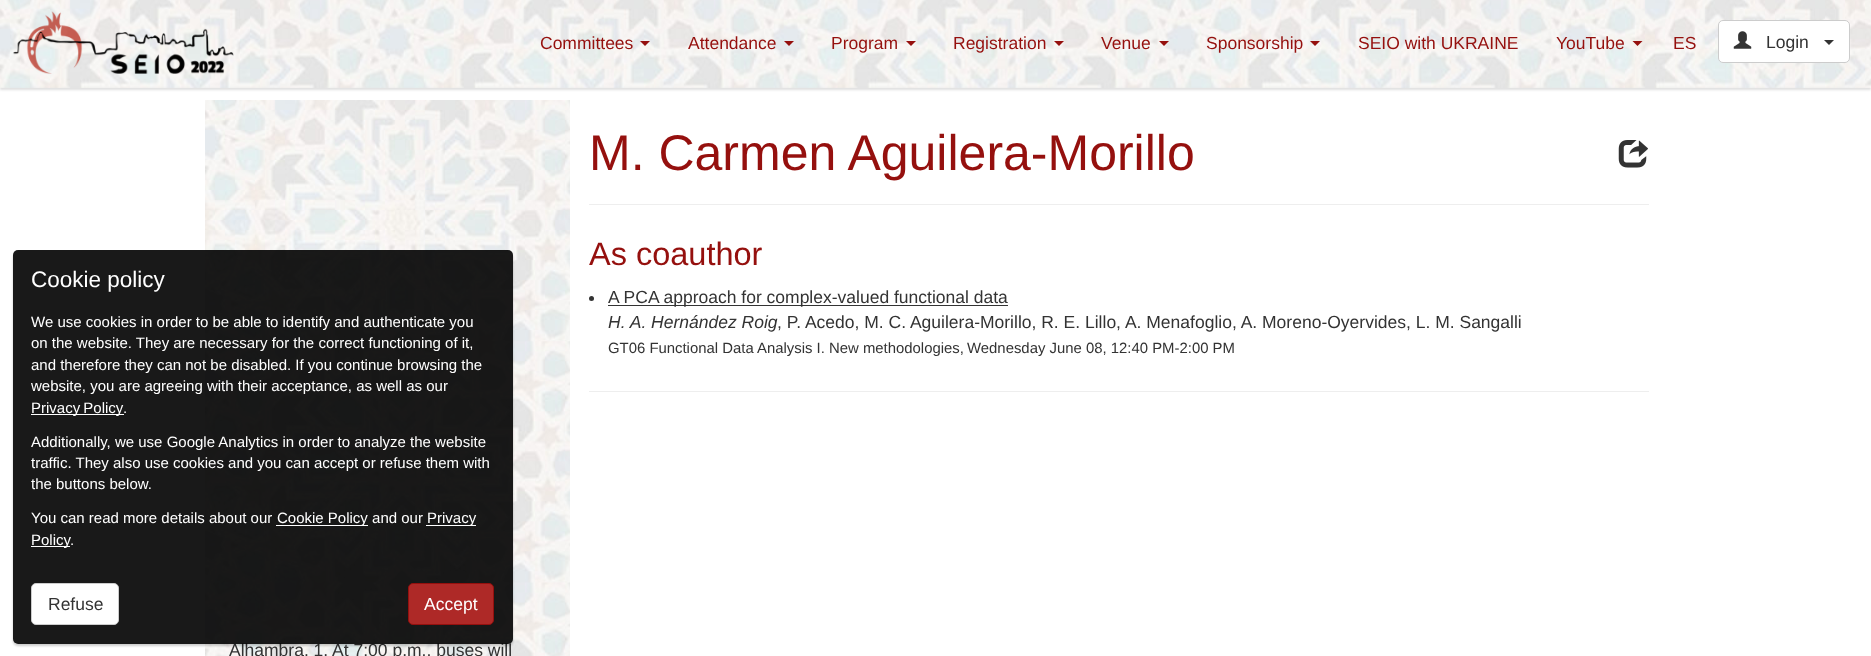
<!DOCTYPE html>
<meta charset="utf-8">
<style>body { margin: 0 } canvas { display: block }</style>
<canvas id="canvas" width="1871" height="656"></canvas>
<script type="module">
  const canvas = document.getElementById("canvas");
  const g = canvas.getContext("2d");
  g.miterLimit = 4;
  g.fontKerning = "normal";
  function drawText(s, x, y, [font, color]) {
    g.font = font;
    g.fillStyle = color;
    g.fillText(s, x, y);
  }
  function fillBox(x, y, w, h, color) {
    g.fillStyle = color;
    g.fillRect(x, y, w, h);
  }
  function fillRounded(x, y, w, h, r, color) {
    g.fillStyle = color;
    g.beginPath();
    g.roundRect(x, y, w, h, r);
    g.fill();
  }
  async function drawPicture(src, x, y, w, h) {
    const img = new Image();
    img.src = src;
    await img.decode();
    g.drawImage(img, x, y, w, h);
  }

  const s1 = ["17.5px Liberation Sans", "#95100E"];
  const s2 = ["17.5px Liberation Sans", "#333333"];
  const s3 = ["50px Liberation Sans", "#95100E"];
  const s4 = ["32.5px Liberation Sans", "#95100E"];
  const s5 = ["italic 17.5px Liberation Sans", "#333333"];
  const s6 = ["14.9px Liberation Sans", "#333333"];
  const s7 = ["22.5px Liberation Sans", "#FFFFFF"];
  const s8 = ["15px Liberation Sans", "#FFFFFF"];
  const s9 = ["17.5px Liberation Sans", "#FFFFFF"];

  fillBox(0, 0, 1871, 656, "#FFFFFF");
  g.fillStyle = "rgba(0, 0, 0, 0.12)";
  g.filter = "blur(1px)";
  g.beginPath();
  g.rect(0, 1, 1871, 89);
  g.fill();
  g.filter = "none";
  await drawPicture("pic1.png", 0, 0, 1871, 88);
  await drawPicture("pic2.png", 13, 11, 221, 63);
  drawText("Committees", 540, 49, s1);
  g.beginPath();
  g.moveTo(640, 41);
  g.lineTo(650, 41);
  g.lineTo(645, 46);
  g.closePath();
  g.fill();
  drawText("Attendance", 688, 49, s1);
  g.beginPath();
  g.moveTo(784, 41);
  g.lineTo(794, 41);
  g.lineTo(789, 46);
  g.closePath();
  g.fill();
  drawText("Program", 831, 49, s1);
  g.beginPath();
  g.moveTo(906, 41);
  g.lineTo(916, 41);
  g.lineTo(911, 46);
  g.closePath();
  g.fill();
  drawText("Registration", 953, 49, s1);
  g.beginPath();
  g.moveTo(1054, 41);
  g.lineTo(1064, 41);
  g.lineTo(1059, 46);
  g.closePath();
  g.fill();
  drawText("Venue", 1101, 49, s1);
  g.beginPath();
  g.moveTo(1159, 41);
  g.lineTo(1169, 41);
  g.lineTo(1164, 46);
  g.closePath();
  g.fill();
  drawText("Sponsorship", 1206, 49, s1);
  g.beginPath();
  g.moveTo(1310, 41);
  g.lineTo(1320, 41);
  g.lineTo(1315, 46);
  g.closePath();
  g.fill();
  drawText("SEIO with UKRAINE", 1358, 49, s1);
  drawText("YouTube", 1556, 49, s1);
  g.beginPath();
  g.moveTo(1632.5, 41);
  g.lineTo(1642.5, 41);
  g.lineTo(1637.5, 46);
  g.closePath();
  g.fill();
  drawText("ES", 1673, 49, s1);
  g.fillStyle = "#FFFFFF";
  g.beginPath();
  g.roundRect(1718.5, 20.5, 131, 42, 4.5);
  g.fill();
  g.strokeStyle = "#CCCCCC";
  g.stroke();
  await drawPicture("pic3.png", 1733, 31, 19, 18);
  drawText("Login", 1766, 48, s2);
  g.beginPath();
  g.moveTo(1824, 40);
  g.lineTo(1834, 40);
  g.lineTo(1829, 45);
  g.closePath();
  g.fill();
  fillBox(589, 204, 1060, 1, "#EEEEEE");
  drawText("M. Carmen Aguilera-Morillo", 589, 170, s3);
  await drawPicture("pic4.png", 1618, 140, 30, 28);
  drawText("As coauthor", 589, 265, s4);
  g.fillStyle = "#333333";
  g.beginPath();
  g.arc(591.5, 298.5, 2.5, 0, Math.PI * 2);
  g.fill();
  fillBox(608, 305, 400, 1, "#333333");
  drawText("A PCA approach for complex-valued functional data", 608, 303, s2);
  drawText("H. A. Hernández Roig", 608, 328, s5);
  drawText(", P. Acedo, M. C. Aguilera-Morillo, R. E. Lillo, A. Menafoglio, A. Moreno-Oyervides, L. M. Sangalli", 777, 328, s2);
  drawText("GT06 Functional Data Analysis I. New methodologies,", 608, 353, s6);
  drawText("Wednesday June 08, 12:40 PM-2:00 PM", 967, 353, s6);
  fillBox(589, 391, 1060, 1, "#EEEEEE");
  await drawPicture("pic5.png", 205, 100, 365, 556);
  drawText("Alhambra. 1. At 7:00 p.m., buses will", 229, 656, s2);
  g.save();
  g.beginPath();
  g.moveTo(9, 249);
  g.lineTo(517, 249);
  g.lineTo(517, 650);
  g.lineTo(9, 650);
  g.closePath();
  g.moveTo(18, 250);
  g.lineTo(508, 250);
  g.bezierCurveTo(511, 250, 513, 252, 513, 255);
  g.lineTo(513, 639);
  g.bezierCurveTo(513, 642, 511, 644, 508, 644);
  g.lineTo(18, 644);
  g.bezierCurveTo(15, 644, 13, 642, 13, 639);
  g.lineTo(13, 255);
  g.bezierCurveTo(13, 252, 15, 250, 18, 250);
  g.closePath();
  g.clip("evenodd");
  g.fillStyle = "rgba(0, 0, 0, 0.2)";
  g.filter = "blur(1px)";
  g.beginPath();
  g.roundRect(13, 253, 500, 393, 5);
  g.fill();
  g.filter = "none";
  g.restore();
  fillRounded(13, 250, 500, 394, 5, "rgba(0, 0, 0, 0.9)");
  drawText("Cookie policy", 31, 287, s7);
  drawText("We use cookies in order to be able to identify and authenticate you", 31, 327, s8);
  drawText("on the website. They are necessary for the correct functioning of it,", 31, 348, s8);
  drawText("and therefore they can not be disabled. If you continue browsing the", 31, 370, s8);
  drawText("website, you are agreeing with their acceptance, as well as our", 31, 391, s8);
  fillBox(31, 414, 93, 1, "#FFFFFF");
  g.wordSpacing = "-1px";
  drawText("Privacy Policy", 31, 413, s8);
  g.wordSpacing = "0px";
  drawText(".", 123, 413, s8);
  drawText("Additionally, we use Google Analytics in order to analyze the website", 31, 447, s8);
  drawText("traffic. They also use cookies and you can accept or refuse them with", 31, 468, s8);
  drawText("the buttons below.", 31, 489, s8);
  drawText("You can read more details about our", 31, 523, s8);
  fillBox(276, 525, 92, 1, "#FFFFFF");
  drawText("Cookie Policy and our", 277, 523, s8);
  fillBox(426, 525, 50, 1, "#FFFFFF");
  drawText("Privacy", 427, 523, s8);
  fillBox(31, 546, 39, 1, "#FFFFFF");
  drawText("Policy", 31, 545, s8);
  drawText(".", 70, 545, s8);
  g.beginPath();
  g.roundRect(31.5, 583.5, 87, 41, 4.5);
  g.fill();
  g.stroke();
  drawText("Refuse", 48, 610, s2);
  g.fillStyle = "#AE2927";
  g.beginPath();
  g.roundRect(408.5, 583.5, 85, 41, 4.5);
  g.fill();
  g.strokeStyle = "#95100E";
  g.stroke();
  drawText("Accept", 424, 610, s9);
</script>
